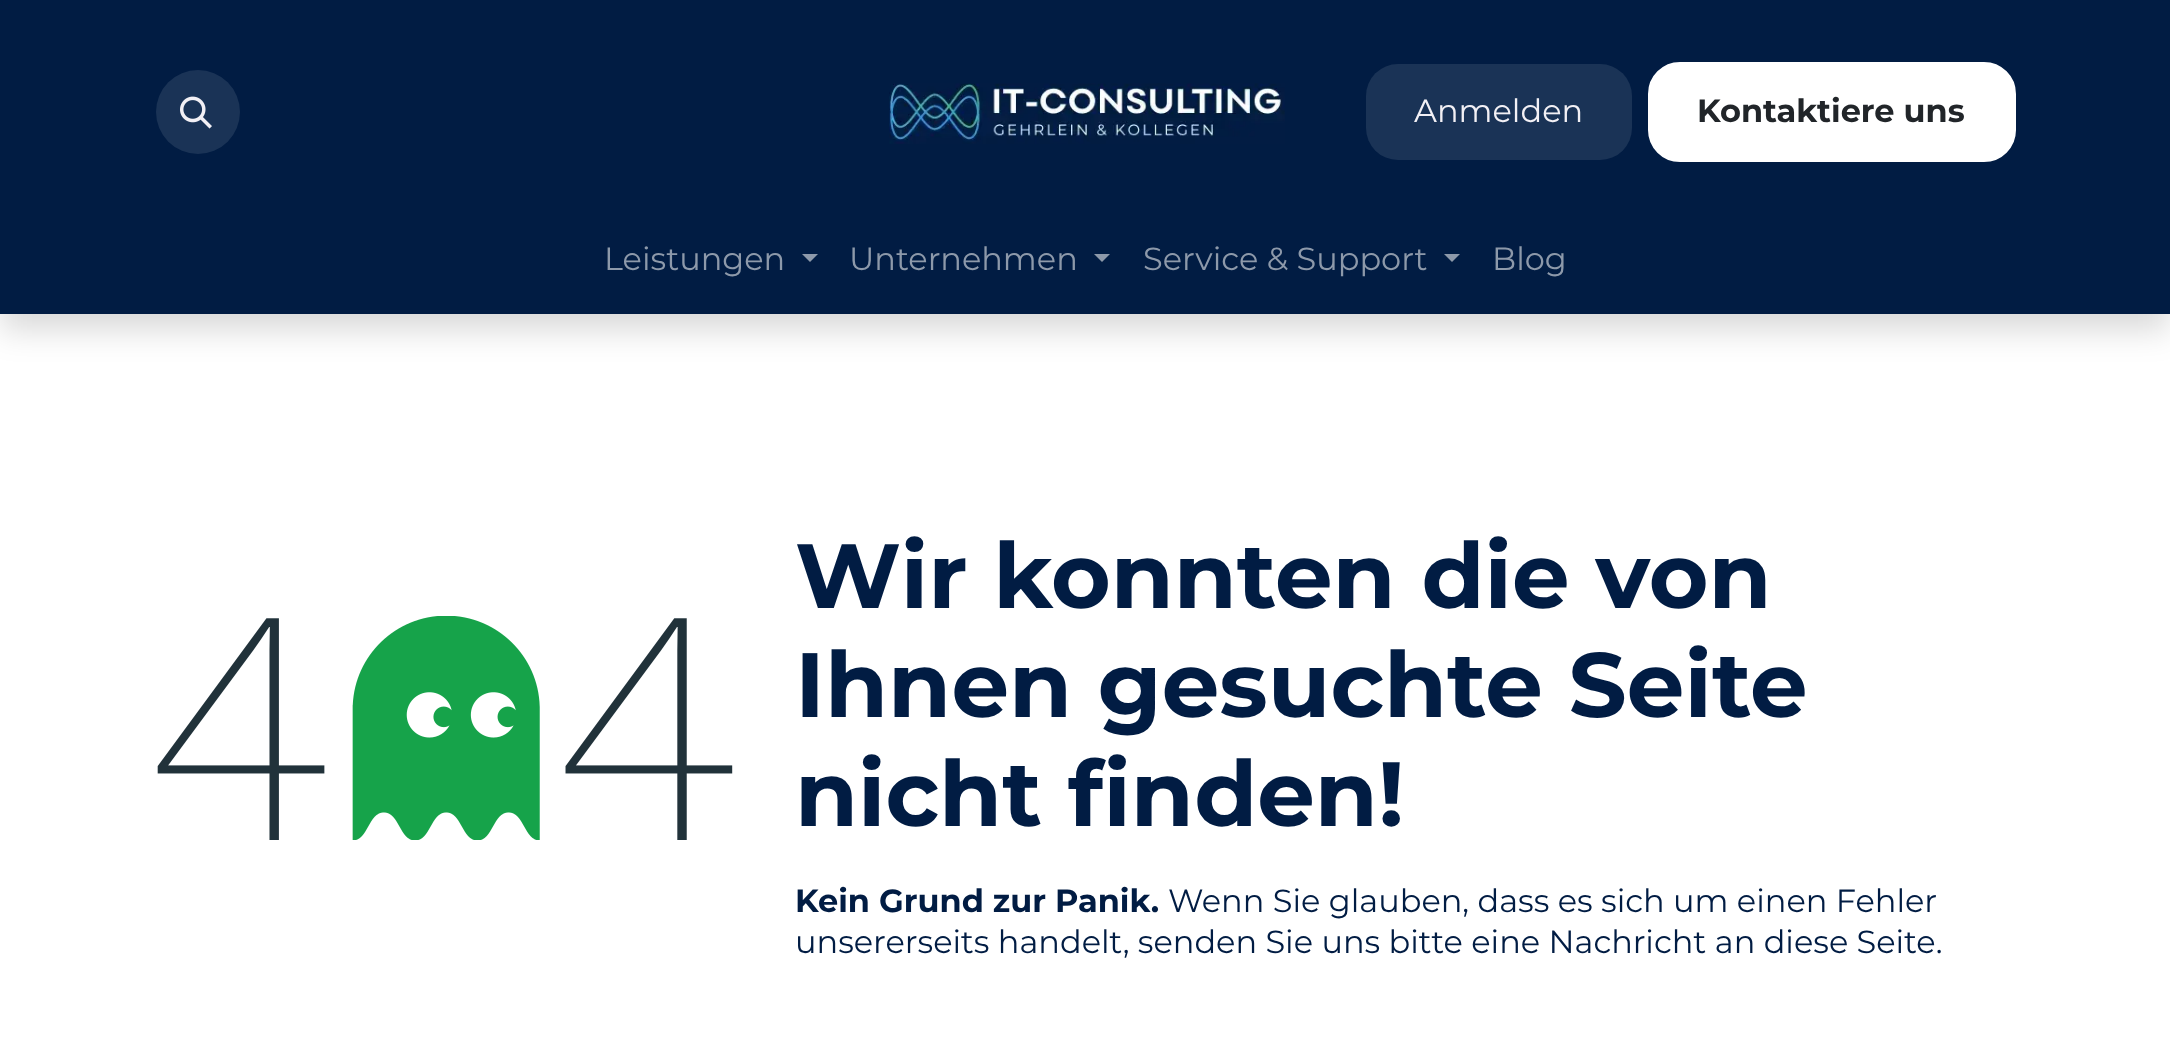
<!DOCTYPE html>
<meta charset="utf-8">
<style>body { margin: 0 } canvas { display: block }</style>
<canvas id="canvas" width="2170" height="1039"></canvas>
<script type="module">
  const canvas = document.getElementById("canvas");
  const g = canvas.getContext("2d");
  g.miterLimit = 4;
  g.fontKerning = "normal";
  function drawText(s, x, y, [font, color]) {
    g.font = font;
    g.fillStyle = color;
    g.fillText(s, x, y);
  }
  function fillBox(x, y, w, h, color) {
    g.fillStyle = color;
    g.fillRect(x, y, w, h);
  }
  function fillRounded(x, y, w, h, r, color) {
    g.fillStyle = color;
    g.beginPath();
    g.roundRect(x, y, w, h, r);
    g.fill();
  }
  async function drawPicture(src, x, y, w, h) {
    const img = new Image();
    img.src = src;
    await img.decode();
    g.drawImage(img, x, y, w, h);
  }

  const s1 = ["32px Montserrat", "#F2F0F5"];
  const s2 = ["bold 32px Montserrat", "#212529"];
  const s3 = ["32px Montserrat", "#8D99AA"];
  const s4 = ["bold 91.25px Montserrat", "#011C43"];
  const s5 = ["bold 32px Montserrat", "#011C43"];
  const s6 = ["32px Montserrat", "#011C43"];

  fillBox(0, 0, 2170, 1039, "#FFFFFF");
  g.fillStyle = "rgba(0, 0, 0, 0.15)";
  g.filter = "blur(16px)";
  g.beginPath();
  g.rect(0, 16, 2170, 314);
  g.fill();
  g.filter = "none";
  fillBox(0, 0, 2170, 314, "#011C43");
  g.fillStyle = "#1A3356";
  g.beginPath();
  g.arc(198, 112, 42, 0, Math.PI * 2);
  g.fill();
  await drawPicture("pic1.png", 180, 96, 32, 33);
  await drawPicture("pic2.png", 889, 83, 396, 61);
  fillRounded(1366, 64, 266, 96, 32, "#1A3356");
  drawText("Anmelden", 1414, 122, s1);
  g.fillStyle = "#FFFFFF";
  g.beginPath();
  g.roundRect(1649, 63, 366, 98, 31);
  g.fill();
  g.strokeStyle = "#FFFFFF";
  g.lineWidth = 2;
  g.stroke();
  drawText("Kontaktiere uns", 1697, 122, s2);
  drawText("Leistungen", 604, 270, s3);
  g.beginPath();
  g.moveTo(802, 254);
  g.lineTo(818, 254);
  g.lineTo(810, 262);
  g.closePath();
  g.fill();
  drawText("Unternehmen", 849, 270, s3);
  g.beginPath();
  g.moveTo(1094, 254);
  g.lineTo(1110, 254);
  g.lineTo(1102, 262);
  g.closePath();
  g.fill();
  drawText("Service & Support", 1143, 270, s3);
  g.beginPath();
  g.moveTo(1444, 254);
  g.lineTo(1460, 254);
  g.lineTo(1452, 262);
  g.closePath();
  g.fill();
  drawText("Blog", 1492, 270, s3);
  await drawPicture("pic3.png", 157, 616, 576, 224);
  drawText("Wir konnten die von", 795, 608, s4);
  drawText("Ihnen gesuchte Seite", 795, 717, s4);
  drawText("nicht finden!", 795, 826, s4);
  drawText("Kein Grund zur Panik.", 795, 912, s5);
  drawText("Wenn Sie glauben, dass es sich um einen Fehler", 1168, 912, s6);
  drawText("unsererseits handelt, senden Sie uns bitte eine Nachricht an diese Seite.", 795, 953, s6);
</script>
